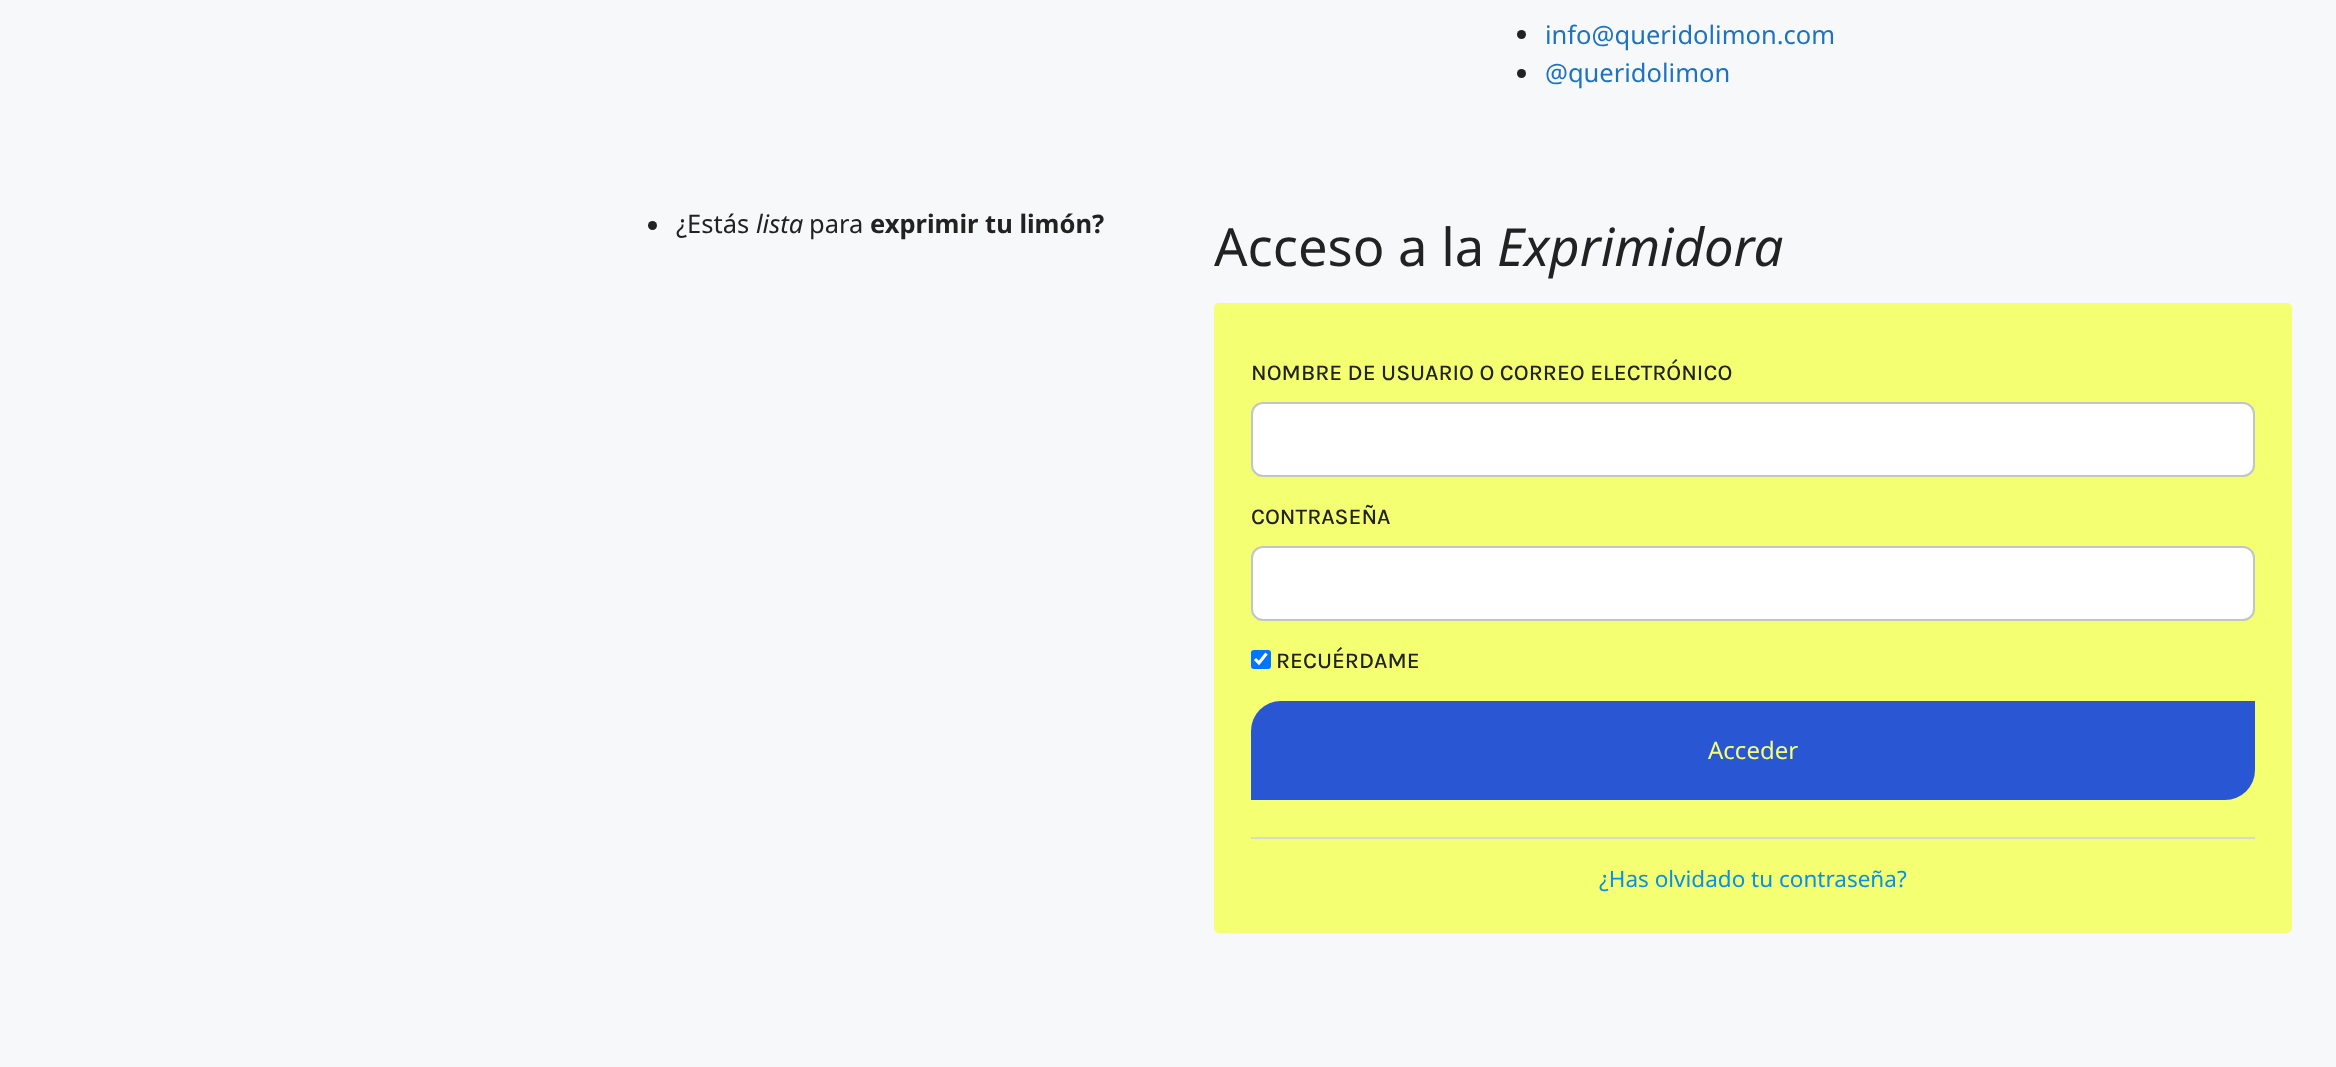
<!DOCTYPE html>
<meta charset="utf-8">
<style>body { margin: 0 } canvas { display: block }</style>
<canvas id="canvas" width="2336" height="1067"></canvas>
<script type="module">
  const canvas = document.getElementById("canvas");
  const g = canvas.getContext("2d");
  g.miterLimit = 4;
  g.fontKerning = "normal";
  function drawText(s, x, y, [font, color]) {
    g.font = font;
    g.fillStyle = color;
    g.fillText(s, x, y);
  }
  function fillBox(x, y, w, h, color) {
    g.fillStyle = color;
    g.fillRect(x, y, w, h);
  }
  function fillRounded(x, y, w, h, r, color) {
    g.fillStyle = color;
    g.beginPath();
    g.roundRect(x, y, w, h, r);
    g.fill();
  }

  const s1 = ["25.5px Noto Sans", "#1E73BE"];
  const s2 = ["25.5px Noto Sans", "#222222"];
  const s3 = ["italic 25.5px Noto Sans", "#222222"];
  const s4 = ["bold 25.5px Noto Sans", "#222222"];
  const s5 = ["52.5px Noto Sans", "#222222"];
  const s6 = ["italic 52.5px Noto Sans", "#222222"];
  const s7 = ["500 22.5px Karla", "#222222"];
  const s8 = ["24px Noto Sans", "#F4FF72"];
  const s9 = ["22.5px Noto Sans", "#0790E8"];

  fillBox(0, 0, 2336, 1067, "#F7F8F9");
  g.fillStyle = "#222222";
  g.beginPath();
  g.arc(1521.5, 34.5, 4.5, 0, Math.PI * 2);
  g.fill();
  drawText("info@queridolimon.com", 1545, 44, s1);
  g.fillStyle = "#222222";
  g.beginPath();
  g.arc(1521.5, 73.5, 4.5, 0, Math.PI * 2);
  g.fill();
  drawText("@queridolimon", 1545, 82, s1);
  g.fillStyle = "#222222";
  g.beginPath();
  g.arc(652.5, 225.5, 4.5, 0, Math.PI * 2);
  g.fill();
  drawText("¿Estás", 676, 233, s2);
  drawText("lista", 756, 233, s3);
  drawText("para", 809, 233, s2);
  drawText("exprimir tu limón?", 870, 233, s4);
  drawText("Acceso a la", 1214, 266, s5);
  drawText("Exprimidora", 1497, 266, s6);
  fillRounded(1214, 303, 1078, 630, 5, "#F4FF72");
  drawText("NOMBRE DE USUARIO O CORREO ELECTRÓNICO", 1251, 380, s7);
  g.fillStyle = "#FFFFFF";
  g.beginPath();
  g.roundRect(1252, 403, 1002, 73, 11);
  g.fill();
  g.strokeStyle = "#C1C5C8";
  g.lineWidth = 2;
  g.stroke();
  drawText("CONTRASEÑA", 1251, 524, s7);
  g.fillStyle = "#FFFFFF";
  g.beginPath();
  g.roundRect(1252, 547, 1002, 73, 11);
  g.fill();
  g.stroke();
  fillRounded(1251, 650, 20, 19, 3, "#0075FF");
  g.beginPath();
  g.moveTo(1255, 659);
  g.lineTo(1259, 663);
  g.lineTo(1266.5, 653.5);
  g.strokeStyle = "#FFFFFF";
  g.lineWidth = 3.1;
  g.stroke();
  drawText("RECUÉRDAME", 1276, 668, s7);
  g.fillStyle = "#2957D4";
  g.beginPath();
  g.roundRect(1251, 701, 1004, 99, [30, 0, 30, 0]);
  g.fill();
  drawText("Acceder", 1708, 759, s8);
  fillBox(1251, 837, 1004, 2, "#D8D8D8");
  drawText("¿Has olvidado tu contraseña?", 1599, 887, s9);
</script>
